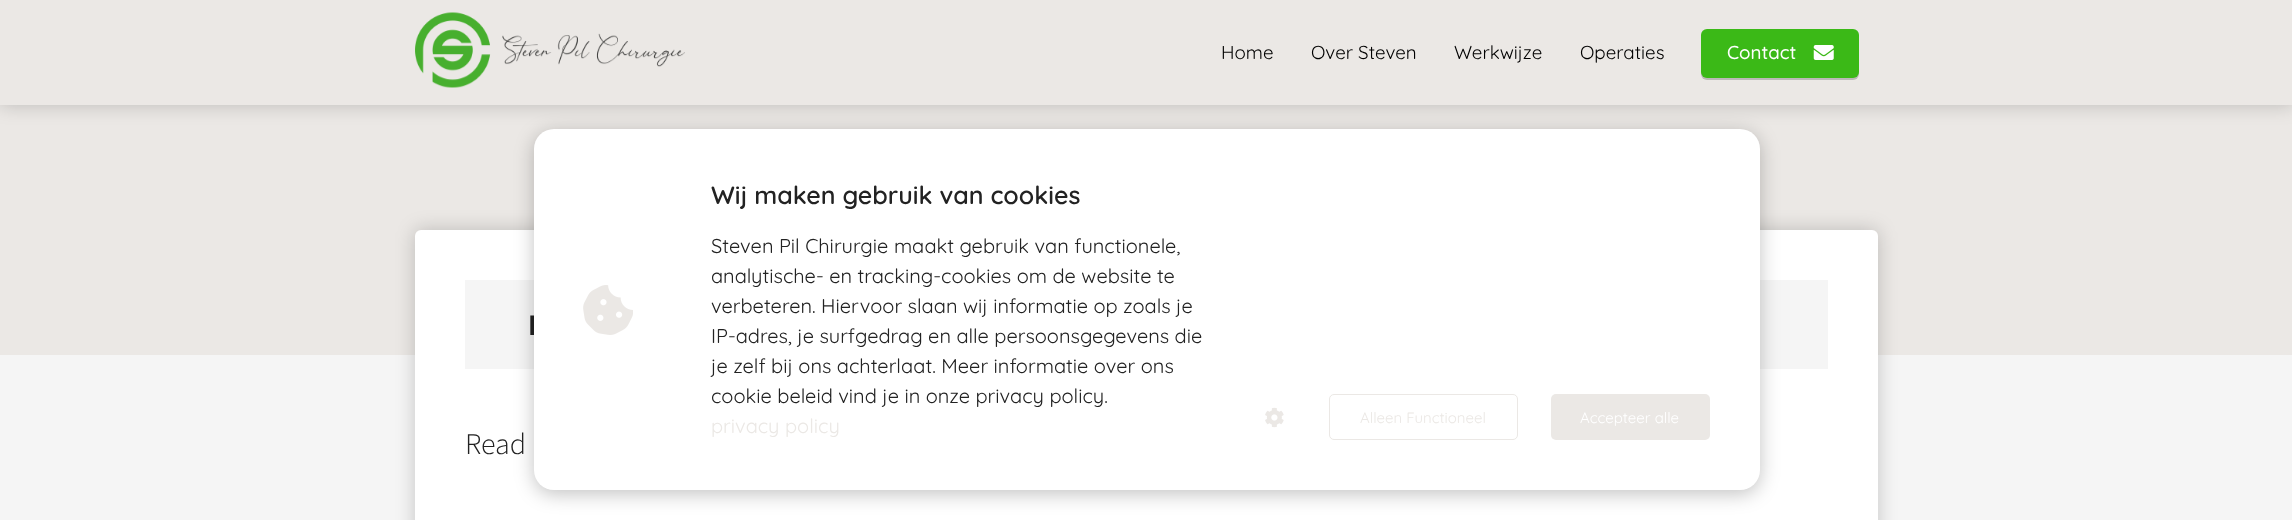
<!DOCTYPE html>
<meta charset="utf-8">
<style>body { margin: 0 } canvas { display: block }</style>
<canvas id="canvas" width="2292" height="520"></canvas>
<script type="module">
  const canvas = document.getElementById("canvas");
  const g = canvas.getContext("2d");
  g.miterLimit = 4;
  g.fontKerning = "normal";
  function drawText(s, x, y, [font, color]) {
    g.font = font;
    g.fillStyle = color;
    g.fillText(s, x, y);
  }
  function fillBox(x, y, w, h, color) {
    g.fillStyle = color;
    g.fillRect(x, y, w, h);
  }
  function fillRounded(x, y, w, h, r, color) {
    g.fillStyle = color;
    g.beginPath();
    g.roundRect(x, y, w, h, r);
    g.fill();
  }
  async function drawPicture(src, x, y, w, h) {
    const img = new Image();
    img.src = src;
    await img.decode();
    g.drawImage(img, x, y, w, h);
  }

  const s1 = ["18.75px Quicksand", "#000000"];
  const s2 = ["500 18.75px Quicksand", "#FFFFFF"];
  const s3 = ["bold 30px Source Sans Pro", "#222222"];
  const s4 = ["300 30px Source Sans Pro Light", "#222222"];
  const s5 = ["600 25px Quicksand", "#222222"];
  const s6 = ["20px Quicksand", "#222222"];
  const s7 = ["20px Quicksand", "#EBE8E5"];
  const s8 = ["15px Quicksand", "#EBE8E5"];
  const s9 = ["15px Quicksand", "#FFFFFF"];

  fillBox(0, 0, 2292, 520, "#F5F5F5");
  fillBox(0, 105, 2292, 250, "#EBE8E5");
  g.fillStyle = "rgba(0, 0, 0, 0.2)";
  g.filter = "blur(9.5px)";
  g.beginPath();
  g.rect(0, 0, 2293, 105);
  g.fill();
  g.filter = "none";
  fillBox(0, 0, 2292, 105, "#EBE8E5");
  await drawPicture("pic1.png", 415, 12, 270, 76);
  drawText("Home", 1221, 59, s1);
  drawText("Over Steven", 1311, 59, s1);
  drawText("Werkwijze", 1454, 59, s1);
  drawText("Operaties", 1580, 59, s1);
  g.fillStyle = "rgba(0, 0, 0, 0.2)";
  g.filter = "blur(0.5px)";
  g.beginPath();
  g.roundRect(1701, 31, 158, 49, 6);
  g.fill();
  g.filter = "none";
  fillRounded(1701, 29, 158, 49, 6, "#3BB917");
  drawText("Contact", 1727, 59, s2);
  await drawPicture("pic2.png", 1813, 45, 21, 15);
  g.fillStyle = "rgba(0, 0, 0, 0.2)";
  g.filter = "blur(9.5px)";
  g.beginPath();
  g.roundRect(415, 230, 1463, 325, 6);
  g.fill();
  g.filter = "none";
  fillRounded(415, 230, 1463, 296, 6, "#FFFFFF");
  fillBox(465, 280, 1363, 89, "#F5F5F5");
  drawText("L", 528, 335, s3);
  drawText("Read", 465, 454, s4);
  g.fillStyle = "rgba(0, 0, 0, 0.24)";
  g.filter = "blur(9.5px)";
  g.beginPath();
  g.roundRect(534, 133, 1226, 361, 20);
  g.fill();
  g.filter = "none";
  fillRounded(534, 129, 1226, 361, 20, "#FFFFFF");
  await drawPicture("pic3.png", 583, 285, 50, 50);
  drawText("Wij maken gebruik van cookies", 711, 204, s5);
  drawText("Steven Pil Chirurgie maakt gebruik van functionele,", 711, 253, s6);
  drawText("analytische- en tracking-cookies om de website te", 711, 283, s6);
  drawText("verbeteren. Hiervoor slaan wij informatie op zoals je", 711, 313, s6);
  drawText("IP-adres, je surfgedrag en alle persoonsgegevens die", 711, 343, s6);
  drawText("je zelf bij ons achterlaat. Meer informatie over ons", 711, 373, s6);
  drawText("cookie beleid vind je in onze privacy policy.", 711, 403, s6);
  drawText("privacy policy", 711, 433, s7);
  await drawPicture("pic4.png", 1265, 407, 19, 21);
  g.beginPath();
  g.roundRect(1329.5, 394.5, 188, 45, 4.5);
  g.strokeStyle = "#EBE8E5";
  g.stroke();
  drawText("Alleen Functioneel", 1360, 423, s8);
  fillRounded(1551, 394, 159, 46, 5, "#EBE8E5");
  drawText("Accepteer alle", 1580, 423, s9);
</script>
